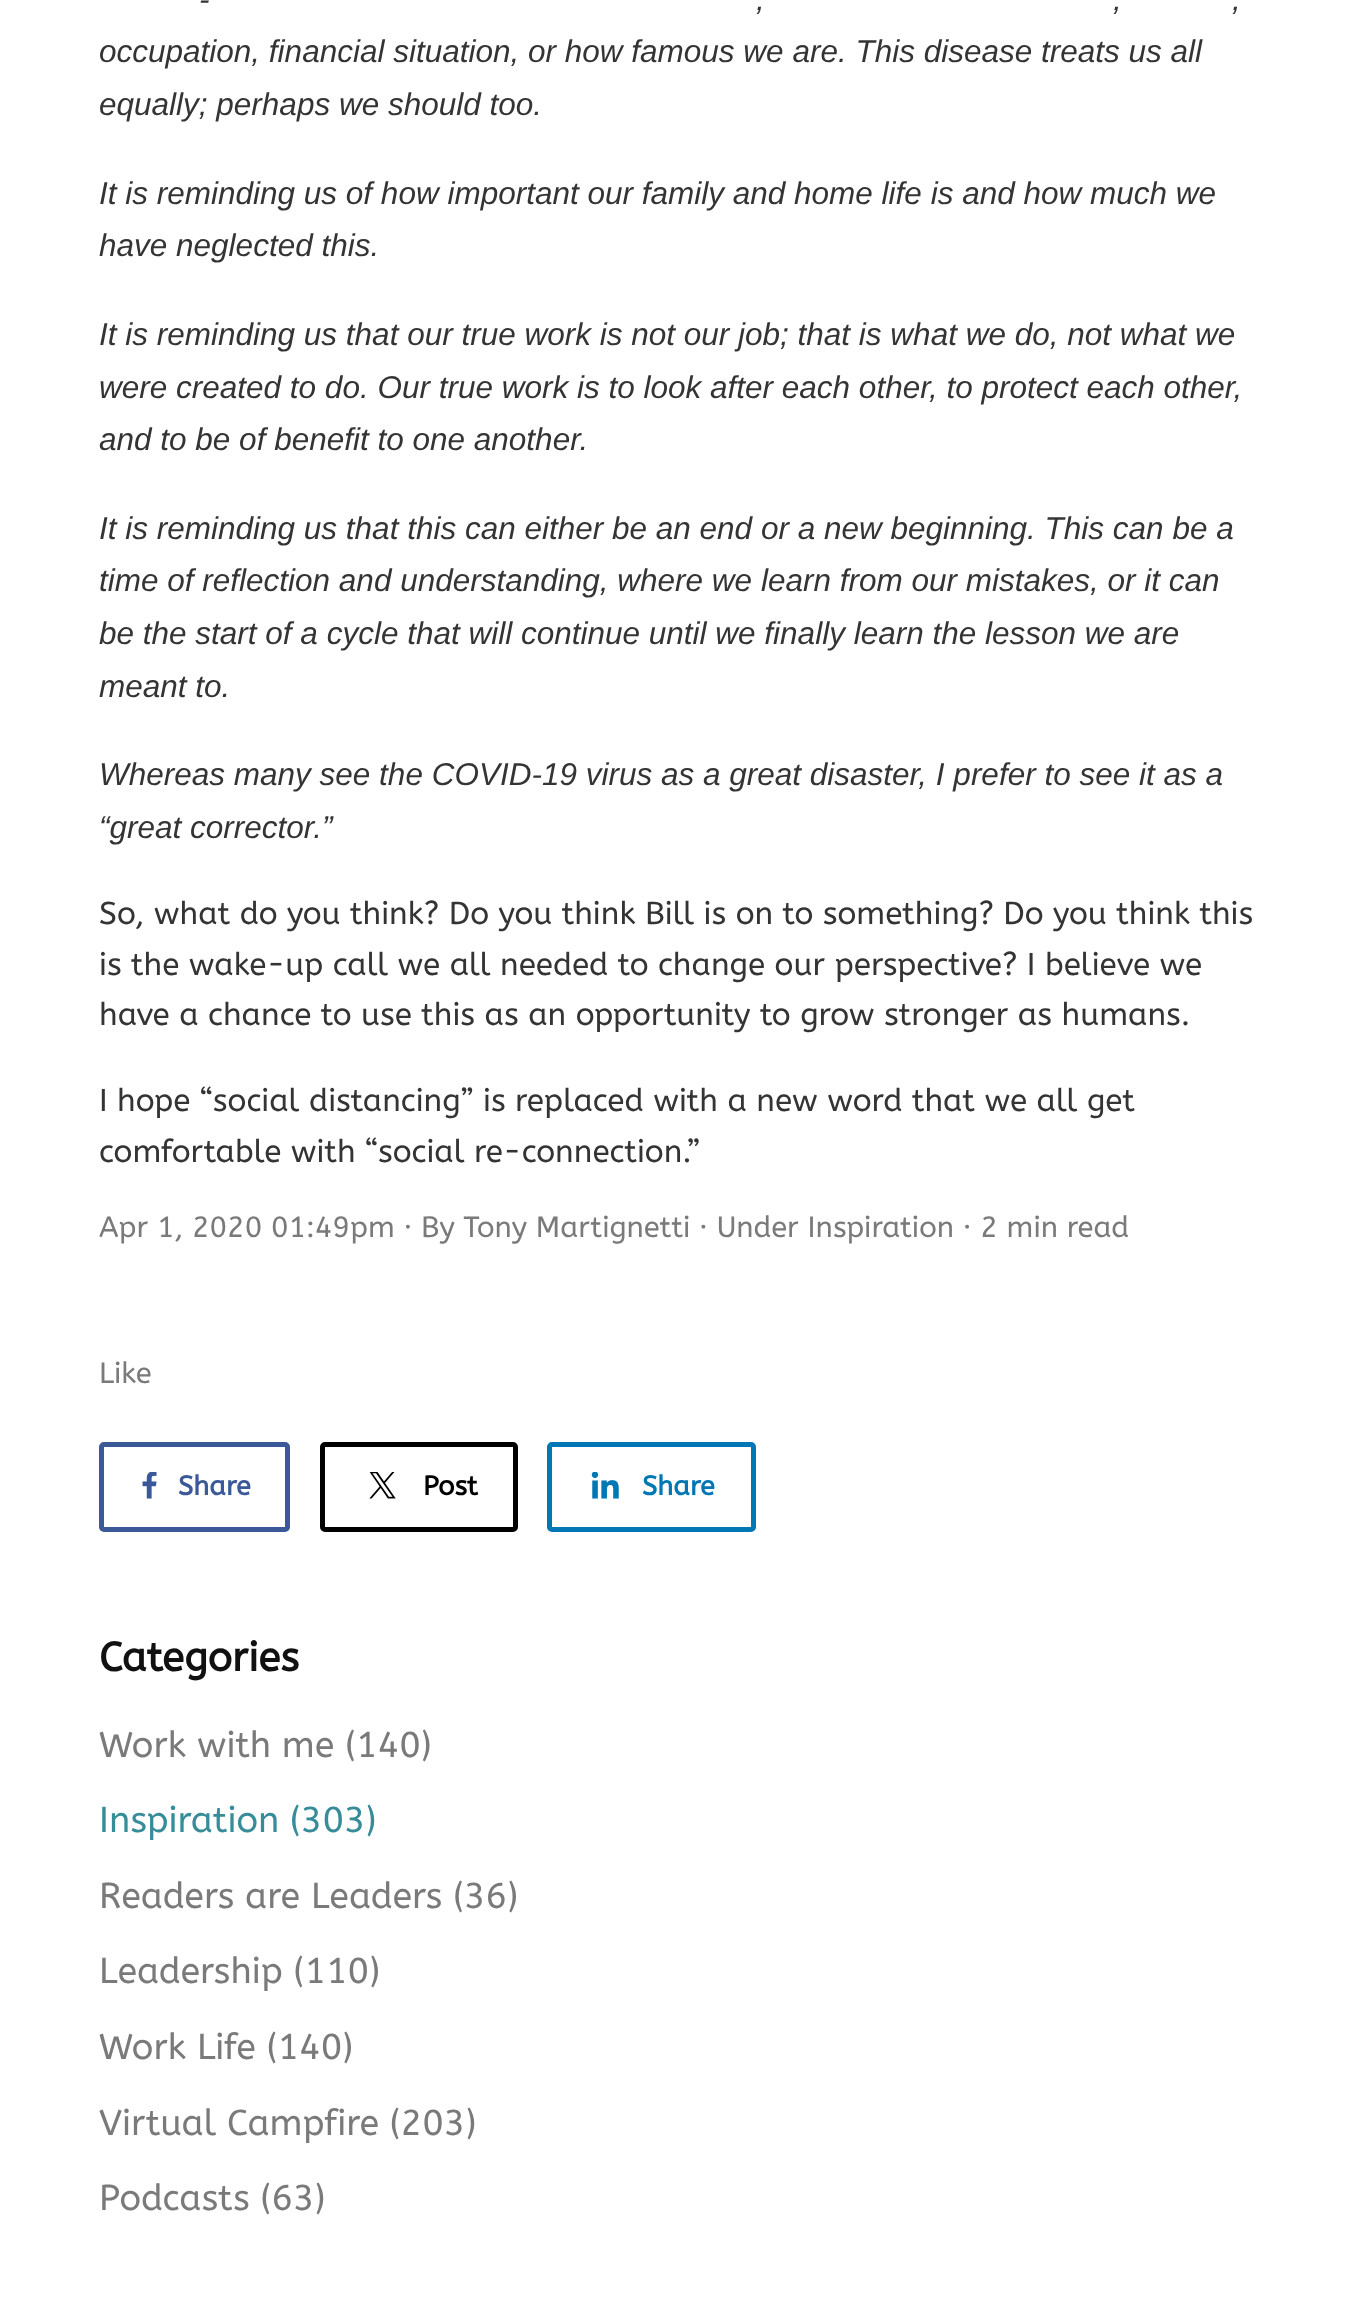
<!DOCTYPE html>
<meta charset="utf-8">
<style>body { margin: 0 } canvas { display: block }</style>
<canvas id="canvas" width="1353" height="2314"></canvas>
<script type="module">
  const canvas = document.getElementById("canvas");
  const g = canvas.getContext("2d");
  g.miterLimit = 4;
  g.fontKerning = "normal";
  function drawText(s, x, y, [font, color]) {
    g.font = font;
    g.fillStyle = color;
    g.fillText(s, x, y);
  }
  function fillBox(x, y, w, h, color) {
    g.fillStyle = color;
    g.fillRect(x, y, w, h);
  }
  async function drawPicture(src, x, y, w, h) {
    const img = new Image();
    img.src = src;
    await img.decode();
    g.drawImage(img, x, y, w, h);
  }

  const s1 = ["italic 31.5px Liberation Sans", "#343434"];
  const s2 = ["31.5px ABeeZee", "#343434"];
  const s3 = ["29.25px ABeeZee", "#7A7A7A"];
  const s4 = ["bold 27px ABeeZee", "#3B5998"];
  const s5 = ["bold 27px ABeeZee", "#000000"];
  const s6 = ["bold 27px ABeeZee", "#0077B5"];
  const s7 = ["bold 40.5px ABeeZee", "#111111"];
  const s8 = ["36px ABeeZee", "#7A7A7A"];
  const s9 = ["36px ABeeZee", "#368C99"];

  fillBox(0, 0, 1353, 2314, "#FFFFFF");
  drawText("-", 199, 10, s1);
  drawText(",", 756, 10, s1);
  drawText(",", 1113, 10, s1);
  drawText(",", 1232, 10, s1);
  drawText("occupation, financial situation, or how famous we are. This disease treats us all", 99, 62, s1);
  drawText("equally; perhaps we should too.", 99, 115, s1);
  drawText("It is reminding us of how important our family and home life is and how much we", 99, 204, s1);
  drawText("have neglected this.", 99, 256, s1);
  drawText("It is reminding us that our true work is not our job; that is what we do, not what we", 99, 345, s1);
  drawText("were created to do. Our true work is to look after each other, to protect each other,", 99, 398, s1);
  drawText("and to be of benefit to one another.", 99, 450, s1);
  drawText("It is reminding us that this can either be an end or a new beginning. This can be a", 99, 539, s1);
  drawText("time of reflection and understanding, where we learn from our mistakes, or it can", 99, 591, s1);
  drawText("be the start of a cycle that will continue until we finally learn the lesson we are", 99, 644, s1);
  drawText("meant to.", 99, 697, s1);
  drawText("Whereas many see the COVID-19 virus as a great disaster, I prefer to see it as a", 99, 785, s1);
  drawText("“great corrector.”", 99, 838, s1);
  drawText("So, what do you think? Do you think Bill is on to something? Do you think this", 99, 924, s2);
  drawText("is the wake-up call we all needed to change our perspective? I believe we", 99, 975, s2);
  drawText("have a chance to use this as an opportunity to grow stronger as humans.", 99, 1025, s2);
  drawText("I hope “social distancing” is replaced with a new word that we all get", 99, 1111, s2);
  drawText("comfortable with “social re-connection.”", 99, 1162, s2);
  drawText("Apr 1, 2020 01:49pm · By Tony Martignetti · Under Inspiration · 2 min read", 99, 1237, s3);
  drawText("Like", 99, 1383, s3);
  g.beginPath();
  g.roundRect(101.5, 1444.5, 186, 85, 2.5);
  g.strokeStyle = "#3B5998";
  g.lineWidth = 5;
  g.stroke();
  await drawPicture("pic1.png", 142, 1472, 15, 27);
  drawText("Share", 178, 1495, s4);
  g.beginPath();
  g.roundRect(322.5, 1444.5, 193, 85, 2.5);
  g.strokeStyle = "#000000";
  g.stroke();
  await drawPicture("pic2.png", 369, 1472, 27, 27);
  drawText("Post", 423, 1495, s5);
  g.beginPath();
  g.roundRect(549.5, 1444.5, 204, 85, 2.5);
  g.strokeStyle = "#0077B5";
  g.stroke();
  await drawPicture("pic3.png", 591, 1472, 28, 27);
  drawText("Share", 642, 1495, s6);
  drawText("Categories", 99, 1671, s7);
  drawText("Work with me (140)", 99, 1757, s8);
  drawText("Inspiration (303)", 99, 1832, s9);
  drawText("Readers are Leaders (36)", 99, 1908, s8);
  drawText("Leadership (110)", 99, 1983, s8);
  drawText("Work Life (140)", 99, 2059, s8);
  drawText("Virtual Campfire (203)", 99, 2135, s8);
  drawText("Podcasts (63)", 99, 2210, s8);
</script>
